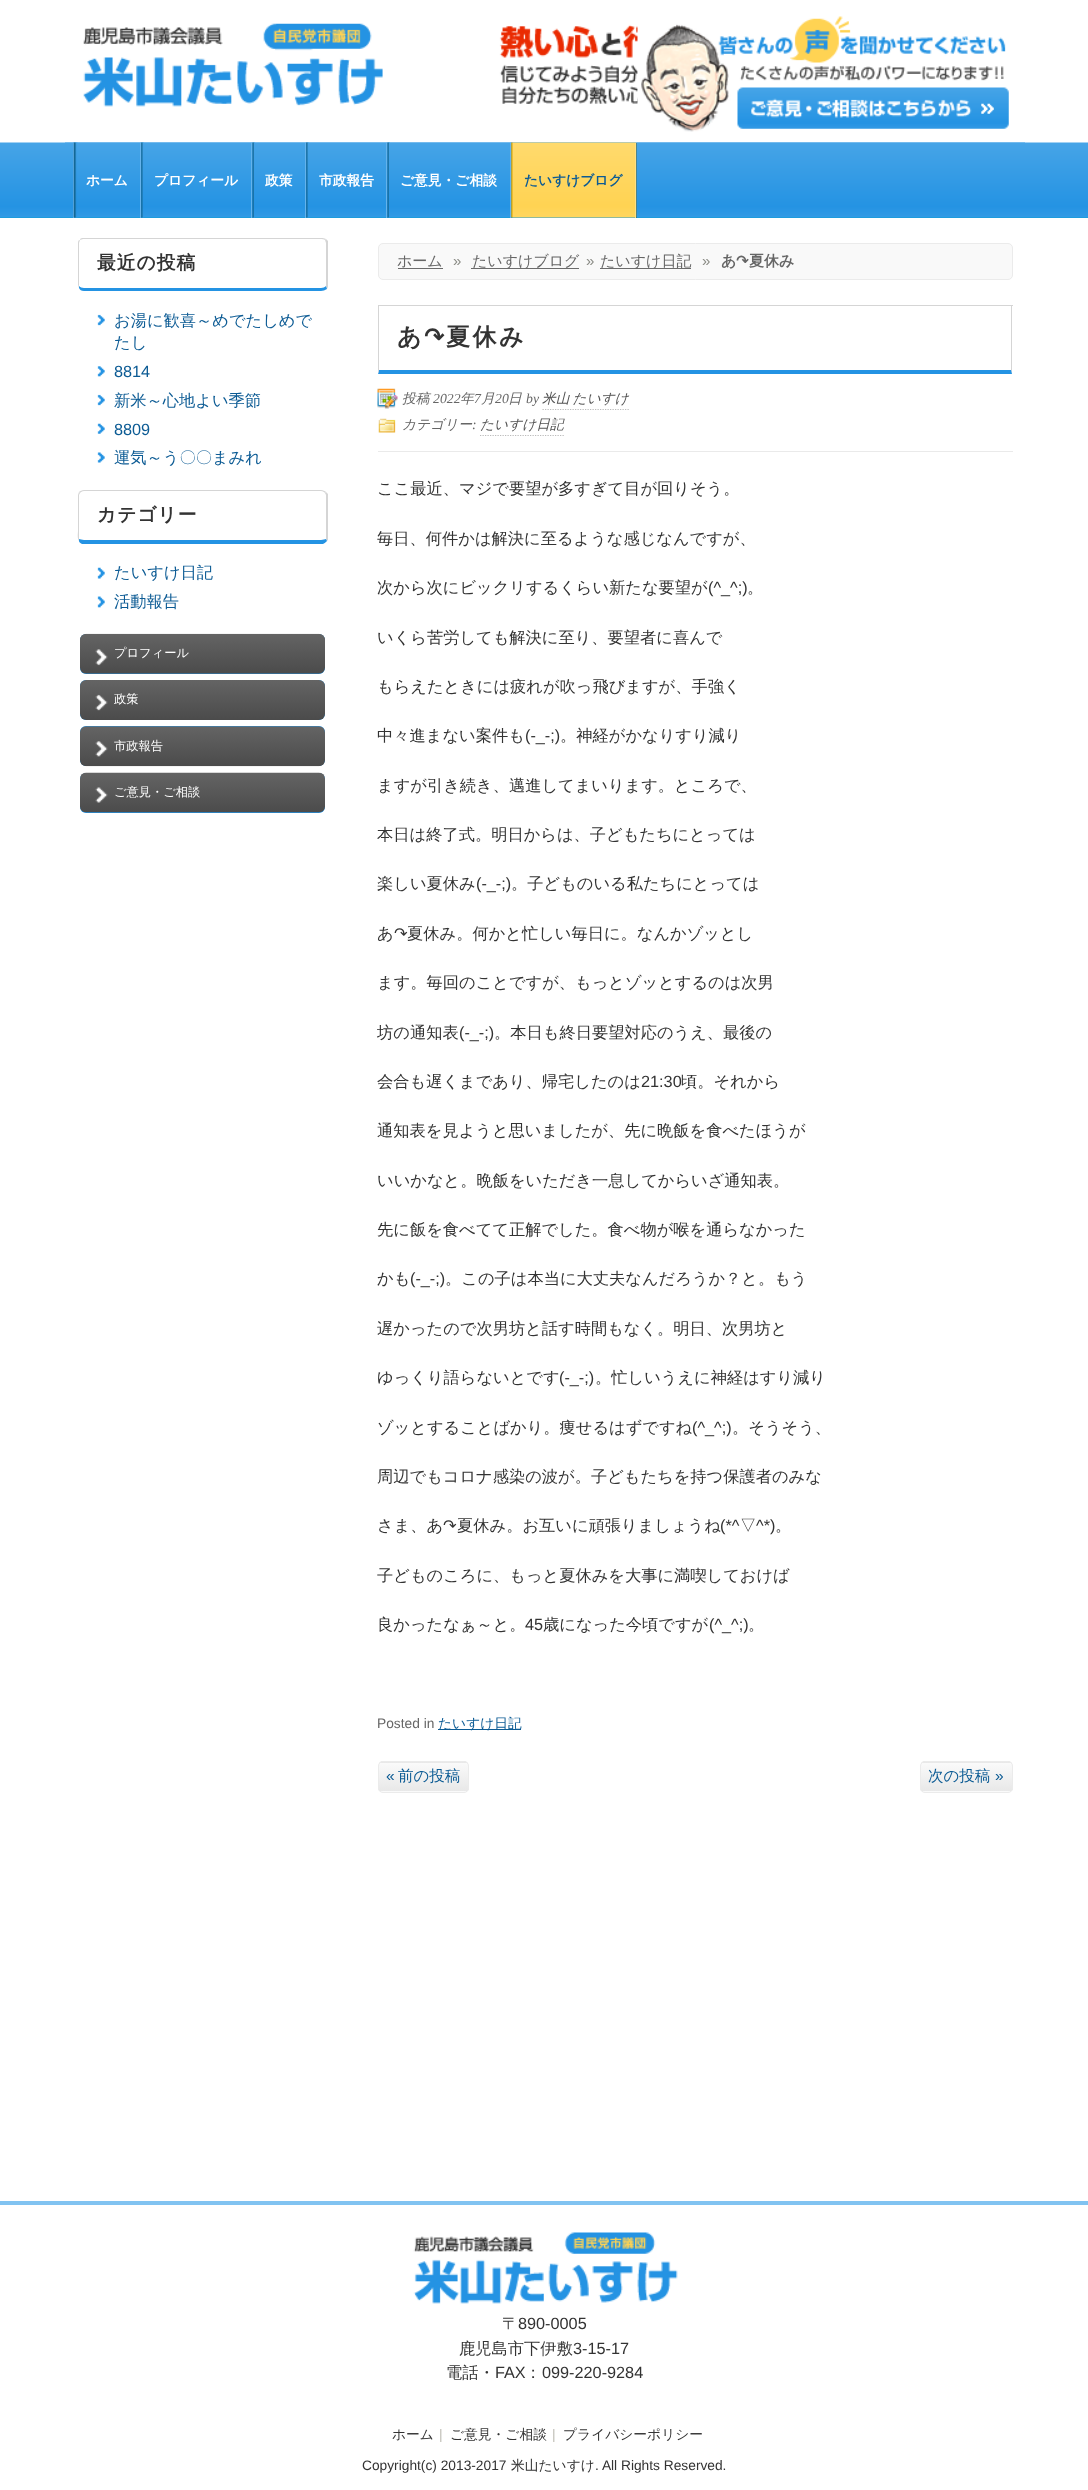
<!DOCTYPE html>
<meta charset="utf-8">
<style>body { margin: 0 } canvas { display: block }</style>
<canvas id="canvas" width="1088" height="2490"></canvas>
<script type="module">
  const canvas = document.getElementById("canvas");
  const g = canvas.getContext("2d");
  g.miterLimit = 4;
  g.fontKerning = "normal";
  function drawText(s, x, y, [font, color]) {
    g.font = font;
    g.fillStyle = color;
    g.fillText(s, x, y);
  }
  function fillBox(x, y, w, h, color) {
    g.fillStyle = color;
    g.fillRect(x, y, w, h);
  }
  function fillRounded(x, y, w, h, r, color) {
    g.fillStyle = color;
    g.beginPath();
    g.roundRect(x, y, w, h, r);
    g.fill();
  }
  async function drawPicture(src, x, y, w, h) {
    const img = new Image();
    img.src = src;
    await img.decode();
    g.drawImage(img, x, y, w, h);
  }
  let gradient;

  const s1 = ["bold 13.75px WenQuanYi Zen Hei", "#FFFFFF"];
  const s2 = ["bold 13.75px WenQuanYi Zen Hei", "#0C5B94"];
  const s3 = ["bold 18.75px WenQuanYi Zen Hei", "#333333"];
  const s4 = ["500 16.25px WenQuanYi Zen Hei", "#0C5B94"];
  const s5 = ["16.25px Liberation Sans", "#0C5B94"];
  const s6 = ["500 12.25px WenQuanYi Zen Hei", "#FFFFFF"];
  const s7 = ["500 15px WenQuanYi Zen Hei", "#666666"];
  const s8 = ["15px Liberation Sans", "#8C8D87"];
  const s9 = ["bold 15px WenQuanYi Zen Hei", "#666666"];
  const s10 = ["bold 15px DejaVu Sans", "#666666"];
  const s11 = ["bold 24px WenQuanYi Zen Hei", "#333333"];
  const s12 = ["bold 24px DejaVu Sans", "#333333"];
  const s13 = ["italic 500 13.75px WenQuanYi Zen Hei", "#666666"];
  const s14 = ["italic 13.75px Liberation Serif", "#666666"];
  const s15 = ["italic 500 13.75px WenQuanYi Zen Hei", "#535353"];
  const s16 = ["500 16.25px WenQuanYi Zen Hei", "#333333"];
  const s17 = ["16.25px Liberation Sans", "#333333"];
  const s18 = ["16.25px DejaVu Sans", "#333333"];
  const s19 = ["13.75px Liberation Sans", "#666666"];
  const s20 = ["500 13.75px WenQuanYi Zen Hei", "#0C5B94"];
  const s21 = ["15.5px Liberation Sans", "#0C5B94"];
  const s22 = ["500 15.5px WenQuanYi Zen Hei", "#0C5B94"];
  const s23 = ["500 13.75px WenQuanYi Zen Hei", "#333333"];
  const s24 = ["13.75px Liberation Sans", "#BEBDB4"];
  const s25 = ["13.75px Liberation Sans", "#333333"];

  fillBox(0, 0, 1088, 2490, "#FFFFFF");
  await drawPicture("pic1.png", 83, 23, 555, 84);
  await drawPicture("pic2.png", 637, 16, 372, 116);
  fillBox(0, 217, 1088, 1, "#0B9FD3");
  await drawPicture("pic3.png", 0, 142, 1088, 76);
  fillBox(65, 217, 960, 1, "#0B9FD3");
  await drawPicture("pic4.png", 65, 142, 960, 76);
  fillBox(73, 143, 1, 75, "#64B3EC");
  await drawPicture("pic5.png", 73, 142, 5, 76);
  fillBox(140, 143, 1, 75, "#64B3EC");
  drawText("ホーム", 86, 185, s1);
  await drawPicture("pic6.png", 141, 142, 3, 76);
  fillBox(251, 143, 1, 75, "#64B3EC");
  drawText("プロフィール", 154, 185, s1);
  await drawPicture("pic7.png", 252, 142, 3, 76);
  fillBox(305, 143, 1, 75, "#64B3EC");
  drawText("政策", 265, 185, s1);
  await drawPicture("pic8.png", 306, 142, 3, 76);
  fillBox(386, 143, 1, 75, "#64B3EC");
  drawText("市政報告", 319, 185, s1);
  await drawPicture("pic7.png", 387, 142, 3, 76);
  fillBox(510, 143, 1, 75, "#64B3EC");
  drawText("ご意見・ご相談", 400, 185, s1);
  fillBox(636, 143, 1, 75, "#146896");
  await drawPicture("pic9.png", 511, 142, 126, 76);
  fillBox(635, 143, 1, 75, "#FEE085");
  drawText("たいすけブログ", 524, 185, s2);
  g.fillStyle = "#D5D5D5";
  g.beginPath();
  g.moveTo(84, 238);
  g.bezierCurveTo(82, 238, 80, 238, 80, 240);
  g.lineTo(83, 239);
  g.lineTo(321, 239);
  g.bezierCurveTo(322, 239, 324, 239, 325, 240);
  g.lineTo(326, 239);
  g.bezierCurveTo(324, 238, 323, 238, 321, 238);
  g.closePath();
  g.fill();
  g.beginPath();
  g.moveTo(326, 239);
  g.lineTo(328, 241);
  g.lineTo(328, 287);
  g.lineTo(327, 289);
  g.lineTo(326, 286);
  g.lineTo(326, 243);
  g.lineTo(325, 240);
  g.closePath();
  g.fill();
  g.fillStyle = "#2493E3";
  g.beginPath();
  g.moveTo(327, 289);
  g.bezierCurveTo(325, 290, 323, 291, 321, 291);
  g.lineTo(84, 291);
  g.bezierCurveTo(81, 291, 80, 290, 79, 288);
  g.lineTo(79, 286);
  g.bezierCurveTo(80, 287, 82, 288, 84, 288);
  g.lineTo(321, 288);
  g.bezierCurveTo(323, 288, 325, 287, 326, 286);
  g.closePath();
  g.fill();
  g.fillStyle = "#D5D5D5";
  g.beginPath();
  g.moveTo(80, 240);
  g.bezierCurveTo(78, 240, 78, 242, 78, 244);
  g.lineTo(78, 285);
  g.lineTo(79, 288);
  g.lineTo(79, 286);
  g.lineTo(79, 243);
  g.closePath();
  g.fill();
  g.letterSpacing = "1px";
  drawText("最近の投稿", 97, 269, s3);
  await drawPicture("pic10.png", 97, 314, 8, 12);
  g.letterSpacing = "0px";
  drawText("お湯に歓喜～めでたしめで", 114, 326, s4);
  drawText("たし", 114, 348, s4);
  await drawPicture("pic11.png", 97, 366, 8, 11);
  drawText("8814", 114, 377, s5);
  await drawPicture("pic10.png", 97, 394, 8, 12);
  drawText("新米～心地よい季節", 114, 406, s4);
  await drawPicture("pic12.png", 97, 423, 8, 11);
  drawText("8809", 114, 435, s5);
  await drawPicture("pic13.png", 97, 452, 8, 11);
  drawText("運気～う〇〇まみれ", 114, 463, s4);
  g.fillStyle = "#D5D5D5";
  g.beginPath();
  g.moveTo(84, 490);
  g.bezierCurveTo(82, 490, 80, 491, 79, 492);
  g.lineTo(80, 493);
  g.bezierCurveTo(81, 492, 82, 491, 84, 491);
  g.lineTo(321, 491);
  g.bezierCurveTo(323, 491, 324, 492, 325, 493);
  g.lineTo(326, 492);
  g.bezierCurveTo(325, 491, 323, 490, 321, 490);
  g.closePath();
  g.fill();
  g.beginPath();
  g.moveTo(328, 540);
  g.lineTo(327, 541);
  g.lineTo(326, 539);
  g.lineTo(326, 495);
  g.lineTo(325, 493);
  g.lineTo(326, 492);
  g.lineTo(328, 494);
  g.closePath();
  g.fill();
  g.fillStyle = "#2493E3";
  g.beginPath();
  g.moveTo(82, 544);
  g.bezierCurveTo(80, 543, 79, 542, 79, 541);
  g.lineTo(79, 539);
  g.bezierCurveTo(80, 539, 82, 540, 84, 540);
  g.lineTo(321, 540);
  g.bezierCurveTo(323, 540, 325, 539, 326, 539);
  g.lineTo(327, 541);
  g.bezierCurveTo(326, 542, 325, 543, 323, 544);
  g.closePath();
  g.fill();
  g.fillStyle = "#D5D5D5";
  g.beginPath();
  g.moveTo(79, 492);
  g.lineTo(78, 495);
  g.lineTo(78, 531);
  g.bezierCurveTo(78, 533, 77, 538, 79, 541);
  g.lineTo(79, 539);
  g.lineTo(79, 495);
  g.lineTo(80, 493);
  g.closePath();
  g.fill();
  g.letterSpacing = "1px";
  drawText("カテゴリー", 97, 521, s3);
  await drawPicture("pic14.png", 97, 567, 8, 12);
  g.letterSpacing = "0px";
  drawText("たいすけ日記", 114, 578, s4);
  await drawPicture("pic15.png", 97, 596, 8, 12);
  drawText("活動報告", 114, 607, s4);
  fillRounded(80, 634, 245, 40, 6, "#2493E3");
  await drawPicture("pic16.png", 80, 633, 245, 41);
  drawText("プロフィール", 114, 657, s6);
  fillRounded(80, 680, 245, 40, 6, "#2493E3");
  await drawPicture("pic17.png", 80, 680, 245, 40);
  drawText("政策", 114, 703, s6);
  fillRounded(80, 726, 245, 40, 6, "#2493E3");
  await drawPicture("pic18.png", 80, 726, 245, 41);
  drawText("市政報告", 114, 750, s6);
  fillRounded(80, 773, 245, 40, 6, "#2493E3");
  await drawPicture("pic19.png", 80, 772, 245, 41);
  drawText("ご意見・ご相談", 114, 796, s6);
  g.fillStyle = "#F9F9F9";
  g.beginPath();
  g.roundRect(378.5, 243.5, 634, 36, 4.5);
  g.fill();
  g.strokeStyle = "#EBEBEB";
  g.stroke();
  drawText("ホーム", 397, 266, s7);
  fillBox(398, 268, 45, 1, "#6B6B6B");
  drawText("»", 453, 266, s8);
  fillBox(471, 268, 108, 1, "#6B6B6B");
  drawText("たいすけブログ", 472, 266, s7);
  drawText("»", 586, 266, s8);
  fillBox(600, 268, 91, 1, "#6B6B6B");
  drawText("たいすけ日記", 600, 266, s7);
  drawText("»", 702, 266, s8);
  drawText("あ", 721, 266, s9);
  drawText("↷", 736, 266, s10);
  drawText("夏休み", 749, 266, s9);
  fillBox(378, 305, 635, 1, "#D5D5D5");
  g.beginPath();
  g.moveTo(1012, 305);
  g.lineTo(1012, 374);
  g.lineTo(1011, 370);
  g.lineTo(1011, 306);
  g.closePath();
  g.fill();
  g.fillStyle = "#2493E3";
  g.beginPath();
  g.moveTo(1012, 374);
  g.lineTo(378, 374);
  g.lineTo(379, 370);
  g.lineTo(1011, 370);
  g.closePath();
  g.fill();
  g.fillStyle = "#D5D5D5";
  g.beginPath();
  g.moveTo(378, 374);
  g.lineTo(378, 305);
  g.lineTo(379, 306);
  g.lineTo(379, 370);
  g.closePath();
  g.fill();
  g.letterSpacing = "2.5px";
  drawText("あ", 397, 345, s11);
  drawText("↷", 424, 345, s12);
  drawText("夏休み", 446, 345, s11);
  fillBox(378, 451, 635, 1, "#EAEAEA");
  await drawPicture("pic20.png", 377, 388, 21, 21);
  g.letterSpacing = "0px";
  drawText("投稿", 402, 403, s13);
  drawText("2022", 433, 403, s14);
  drawText("年", 460, 403, s13);
  drawText("7", 474, 403, s14);
  drawText("月", 481, 403, s13);
  drawText("20", 495, 403, s14);
  drawText("日", 508, 403, s13);
  drawText("by", 526, 403, s14);
  g.wordSpacing = "-1px";
  drawText("米山 たいすけ", 542, 403, s15);
  g.beginPath();
  g.moveTo(542.5, 409.5);
  g.lineTo(629, 409.5);
  g.strokeStyle = "#BBBBBB";
  g.lineWidth = 1.2;
  g.setLineDash([1.25, 1.25]);
  g.stroke();
  await drawPicture("pic21.png", 378, 418, 18, 15);
  g.wordSpacing = "0px";
  drawText("カテゴリー", 402, 429, s13);
  drawText(":", 472, 429, s14);
  drawText("たいすけ日記", 480, 429, s15);
  g.beginPath();
  g.moveTo(480, 435.5);
  g.lineTo(564, 435.5);
  g.stroke();
  drawText("ここ最近、マジで要望が多すぎて目が回りそう。", 377, 494, s16);
  drawText("毎日、何件かは解決に至るような感じなんですが、", 377, 544, s16);
  drawText("次から次にビックリするくらい新たな要望が", 377, 593, s16);
  drawText("(^_^;)", 708, 593, s17);
  drawText("。", 747, 593, s16);
  drawText("いくら苦労しても解決に至り、要望者に喜んで", 377, 643, s16);
  drawText("もらえたときには疲れが吹っ飛びますが、手強く", 377, 692, s16);
  drawText("中々進まない案件も", 377, 741, s16);
  drawText("(-_-;)", 525, 741, s17);
  drawText("。神経がかなりすり減り", 560, 741, s16);
  drawText("ますが引き続き、邁進してまいります。ところで、", 377, 791, s16);
  drawText("本日は終了式。明日からは、子どもたちにとっては", 377, 840, s16);
  drawText("楽しい夏休み", 377, 889, s16);
  drawText("(-_-;)", 476, 889, s17);
  drawText("。子どものいる私たちにとっては", 511, 889, s16);
  drawText("あ", 377, 939, s16);
  drawText("↷", 394, 939, s18);
  drawText("夏休み。何かと忙しい毎日に。なんかゾッとし", 407, 939, s16);
  drawText("ます。毎回のことですが、もっとゾッとするのは次男", 377, 988, s16);
  drawText("坊の通知表", 377, 1038, s16);
  drawText("(-_-;)", 459, 1038, s17);
  drawText("。本日も終日要望対応のうえ、最後の", 494, 1038, s16);
  drawText("会合も遅くまであり、帰宅したのは", 377, 1087, s16);
  drawText("21:30", 641, 1087, s17);
  drawText("頃。それから", 681, 1087, s16);
  drawText("通知表を見ようと思いましたが、先に晩飯を食べたほうが", 377, 1136, s16);
  drawText("いいかなと。晩飯をいただき一息してからいざ通知表。", 377, 1186, s16);
  drawText("先に飯を食べてて正解でした。食べ物が喉を通らなかった", 377, 1235, s16);
  drawText("かも", 377, 1284, s16);
  drawText("(-_-;)", 410, 1284, s17);
  drawText("。この子は本当に大丈夫なんだろうか？と。もう", 445, 1284, s16);
  drawText("遅かったので次男坊と話す時間もなく。明日、次男坊と", 377, 1334, s16);
  drawText("ゆっくり語らないとです", 377, 1383, s16);
  drawText("(-_-;)", 559, 1383, s17);
  drawText("。忙しいうえに神経はすり減り", 595, 1383, s16);
  drawText("ゾッとすることばかり。痩せるはずですね", 377, 1433, s16);
  drawText("(^_^;)", 692, 1433, s17);
  drawText("。そうそう、", 732, 1433, s16);
  drawText("周辺でもコロナ感染の波が。子どもたちを持つ保護者のみな", 377, 1482, s16);
  drawText("さま、あ", 377, 1531, s16);
  drawText("↷", 443, 1531, s18);
  drawText("夏休み。お互いに頑張りましょうね", 457, 1531, s16);
  drawText("(*^", 720, 1531, s17);
  drawText("▽", 740, 1531, s16);
  drawText("^*)", 756, 1531, s17);
  drawText("。", 775, 1531, s16);
  drawText("子どものころに、もっと夏休みを大事に満喫しておけば", 377, 1581, s16);
  drawText("良かったなぁ～と。", 377, 1630, s16);
  drawText("45", 525, 1630, s17);
  drawText("歳になった今頃ですが", 543, 1630, s16);
  drawText("(^_^;)", 709, 1630, s17);
  drawText("。", 748, 1630, s16);
  drawText("Posted in", 377, 1728, s19);
  fillBox(438, 1729, 83, 1, "#0C5B94");
  drawText("たいすけ日記", 438, 1728, s20);
  g.save();
  g.beginPath();
  g.roundRect(378, 1761, 91, 32, 5);
  g.clip();
  gradient = g.createLinearGradient(379, 1763, 379, 1734);
  gradient.addColorStop(0, "#E8E8E8");
  gradient.addColorStop(1, "#FAFAFA");
  g.fillStyle = gradient;
  g.fillRect(378, 1761, 91, 2);
  gradient = g.createLinearGradient(379, 1791, 379, 1763);
  gradient.addColorStop(0, "#E8E8E8");
  gradient.addColorStop(1, "#FAFAFA");
  g.fillStyle = gradient;
  g.fillRect(378, 1763, 91, 28);
  gradient = g.createLinearGradient(379, 1820, 379, 1791);
  gradient.addColorStop(0, "#E8E8E8");
  gradient.addColorStop(1, "#FAFAFA");
  g.fillStyle = gradient;
  g.fillRect(378, 1791, 91, 2);
  g.restore();
  g.beginPath();
  g.roundRect(378.5, 1761.5, 90, 31, 4.5);
  g.strokeStyle = "#EBEBEB";
  g.lineWidth = 1;
  g.setLineDash([]);
  g.stroke();
  drawText("«", 386, 1781, s21);
  drawText("前の投稿", 398, 1781, s22);
  g.save();
  g.beginPath();
  g.roundRect(920, 1761, 93, 32, 5);
  g.clip();
  gradient = g.createLinearGradient(921, 1763, 921, 1734);
  gradient.addColorStop(0, "#E8E8E8");
  gradient.addColorStop(1, "#FAFAFA");
  g.fillStyle = gradient;
  g.fillRect(920, 1761, 93, 2);
  gradient = g.createLinearGradient(921, 1791, 921, 1763);
  gradient.addColorStop(0, "#E8E8E8");
  gradient.addColorStop(1, "#FAFAFA");
  g.fillStyle = gradient;
  g.fillRect(920, 1763, 93, 28);
  gradient = g.createLinearGradient(921, 1820, 921, 1791);
  gradient.addColorStop(0, "#E8E8E8");
  gradient.addColorStop(1, "#FAFAFA");
  g.fillStyle = gradient;
  g.fillRect(920, 1791, 93, 2);
  g.restore();
  g.beginPath();
  g.roundRect(920.5, 1761.5, 92, 31, 4.5);
  g.stroke();
  drawText("次の投稿", 928, 1781, s22);
  drawText("»", 995, 1781, s21);
  fillBox(0, 2201, 1088, 4, "#81C3F1");
  await drawPicture("pic22.png", 413, 2232, 265, 72);
  drawText("〒", 502, 2329, s16);
  drawText("890-0005", 518, 2329, s17);
  drawText("鹿児島市下伊敷", 459, 2354, s16);
  drawText("3-15-17", 573, 2354, s17);
  drawText("電話・", 446, 2378, s16);
  drawText("FAX", 495, 2378, s17);
  drawText("：", 525, 2378, s16);
  drawText("099-220-9284", 542, 2378, s17);
  drawText("ホーム", 392, 2439, s23);
  drawText("|", 439, 2439, s24);
  drawText("ご意見・ご相談", 450, 2439, s23);
  drawText("|", 552, 2439, s24);
  drawText("プライバシーポリシー", 563, 2439, s23);
  drawText("Copyright(c) 2013-2017", 362, 2470, s25);
  drawText("米山たいすけ", 511, 2470, s23);
  drawText(". All Rights Reserved.", 595, 2470, s25);
</script>
